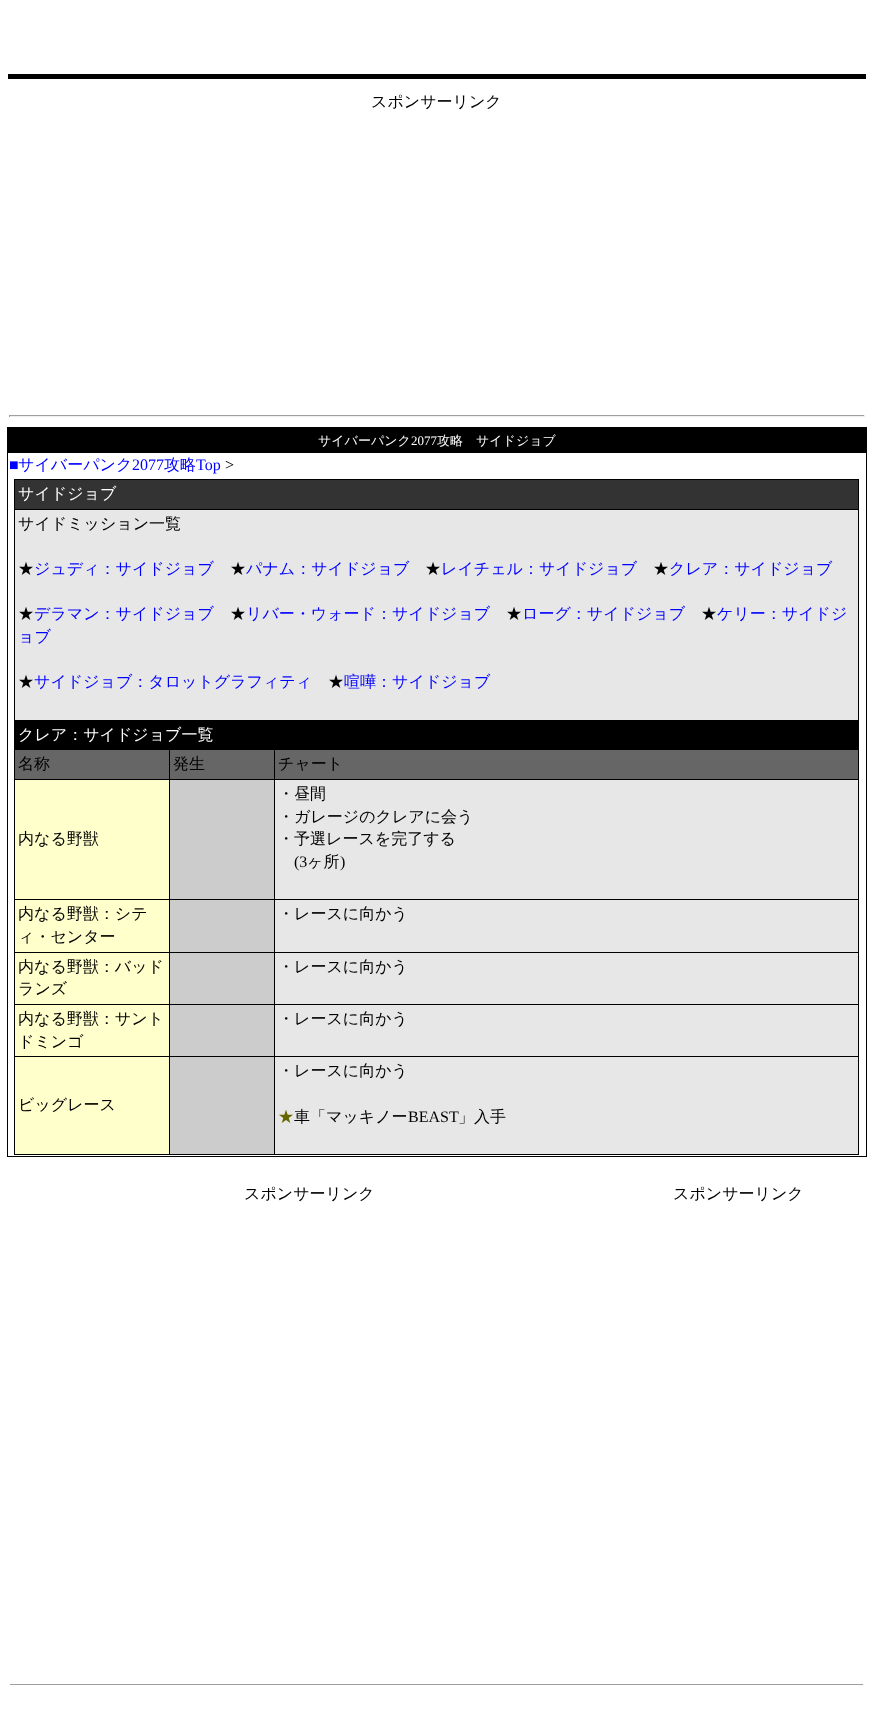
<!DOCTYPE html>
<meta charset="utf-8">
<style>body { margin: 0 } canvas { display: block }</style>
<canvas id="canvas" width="873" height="1722"></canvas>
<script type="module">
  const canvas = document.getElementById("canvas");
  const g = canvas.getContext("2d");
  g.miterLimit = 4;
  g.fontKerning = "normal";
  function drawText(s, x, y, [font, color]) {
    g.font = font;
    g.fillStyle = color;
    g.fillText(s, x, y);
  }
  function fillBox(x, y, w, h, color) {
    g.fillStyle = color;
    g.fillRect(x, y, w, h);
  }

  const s1 = ["500 16px WenQuanYi Zen Hei", "#000000"];
  const s2 = ["500 13px WenQuanYi Zen Hei", "#FFFFFF"];
  const s3 = ["13px Liberation Serif", "#FFFFFF"];
  const s4 = ["16px Liberation Serif", "#0000FF"];
  const s5 = ["500 16px WenQuanYi Zen Hei", "#0000FF"];
  const s6 = ["16px Liberation Serif", "#000000"];
  const s7 = ["500 16px WenQuanYi Zen Hei", "#FFFFFF"];
  const s8 = ["500 16px WenQuanYi Zen Hei", "#666600"];

  fillBox(0, 0, 873, 1722, "#FFFFFF");
  fillBox(8, 74, 858, 5, "#000000");
  drawText("スポンサーリンク", 371, 107, s1);
  fillBox(9, 415, 856, 1, "#9F9F9F");
  fillBox(864, 415, 1, 2, "#EEEEEE");
  fillBox(9, 416, 856, 1, "#EEEEEE");
  fillBox(9, 415, 1, 2, "#9F9F9F");
  g.strokeStyle = "#000000";
  g.strokeRect(7.5, 427.5, 859, 729);
  fillBox(8, 428, 858, 25, "#000000");
  drawText("サイバーパンク", 318, 445, s2);
  drawText("2077", 411, 445, s3);
  drawText("攻略　サイドジョブ", 437, 445, s2);
  drawText("■", 9, 470, s4);
  drawText("サイバーパンク", 18, 470, s5);
  drawText("2077", 132, 470, s4);
  drawText("攻略", 164, 470, s5);
  drawText("Top", 196, 470, s4);
  drawText(">", 225, 470, s6);
  fillBox(14, 479, 845, 676, "#000000");
  fillBox(15, 480, 843, 29, "#333333");
  drawText("サイドジョブ", 18, 499, s7);
  fillBox(15, 510, 843, 210, "#E7E7E7");
  drawText("サイドミッション一覧", 18, 529, s1);
  drawText("★", 18, 574, s1);
  drawText("ジュディ：サイドジョブ", 34, 574, s5);
  drawText("★", 230, 574, s1);
  drawText("パナム：サイドジョブ", 246, 574, s5);
  drawText("★", 425, 574, s1);
  drawText("レイチェル：サイドジョブ", 441, 574, s5);
  drawText("★", 653, 574, s1);
  drawText("クレア：サイドジョブ", 669, 574, s5);
  drawText("★", 18, 619, s1);
  drawText("デラマン：サイドジョブ", 34, 619, s5);
  drawText("★", 230, 619, s1);
  drawText("リバー・ウォード：サイドジョブ", 246, 619, s5);
  drawText("★", 506, 619, s1);
  drawText("ローグ：サイドジョブ", 522, 619, s5);
  drawText("★", 701, 619, s1);
  drawText("ケリー：サイドジ", 717, 619, s5);
  drawText("ョブ", 18, 642, s5);
  drawText("★", 18, 687, s1);
  drawText("サイドジョブ：タロットグラフィティ", 34, 687, s5);
  drawText("★", 328, 687, s1);
  drawText("喧嘩：サイドジョブ", 344, 687, s5);
  drawText("クレア：サイドジョブ一覧", 18, 740, s7);
  fillBox(15, 750, 154, 29, "#666666");
  drawText("名称", 18, 769, s1);
  fillBox(170, 750, 104, 29, "#666666");
  drawText("発生", 173, 769, s1);
  fillBox(275, 750, 583, 29, "#666666");
  drawText("チャート", 278, 769, s1);
  fillBox(15, 780, 154, 119, "#FFFFCC");
  drawText("内なる野獣", 18, 844, s1);
  fillBox(170, 780, 104, 119, "#CCCCCC");
  fillBox(275, 780, 583, 119, "#E7E7E7");
  drawText("・昼間", 278, 799, s1);
  drawText("・ガレージのクレアに会う", 278, 822, s1);
  drawText("・予選レースを完了する", 278, 844, s1);
  drawText("(3", 294, 867, s6);
  drawText("ヶ所", 307, 867, s1);
  drawText(")", 340, 867, s6);
  fillBox(15, 900, 154, 52, "#FFFFCC");
  drawText("内なる野獣：シテ", 18, 919, s1);
  drawText("ィ・センター", 18, 942, s1);
  fillBox(170, 900, 104, 52, "#CCCCCC");
  fillBox(275, 900, 583, 52, "#E7E7E7");
  drawText("・レースに向かう", 278, 919, s1);
  fillBox(15, 953, 154, 51, "#FFFFCC");
  drawText("内なる野獣：バッド", 18, 972, s1);
  drawText("ランズ", 18, 994, s1);
  fillBox(170, 953, 104, 51, "#CCCCCC");
  fillBox(275, 953, 583, 51, "#E7E7E7");
  drawText("・レースに向かう", 278, 972, s1);
  fillBox(15, 1005, 154, 51, "#FFFFCC");
  drawText("内なる野獣：サント", 18, 1024, s1);
  drawText("ドミンゴ", 18, 1047, s1);
  fillBox(170, 1005, 104, 51, "#CCCCCC");
  fillBox(275, 1005, 583, 51, "#E7E7E7");
  drawText("・レースに向かう", 278, 1024, s1);
  fillBox(15, 1057, 154, 97, "#FFFFCC");
  drawText("ビッグレース", 18, 1110, s1);
  fillBox(170, 1057, 104, 97, "#CCCCCC");
  fillBox(275, 1057, 583, 97, "#E7E7E7");
  drawText("・レースに向かう", 278, 1076, s1);
  drawText("★", 278, 1122, s8);
  drawText("車「マッキノー", 294, 1122, s1);
  drawText("BEAST", 408, 1122, s6);
  drawText("」入手", 458, 1122, s1);
  drawText("スポンサーリンク", 244, 1199, s1);
  drawText("スポンサーリンク", 673, 1199, s1);
  fillBox(10, 1684, 854, 1, "#9F9F9F");
  fillBox(863, 1684, 1, 1, "#EEEEEE");
</script>
